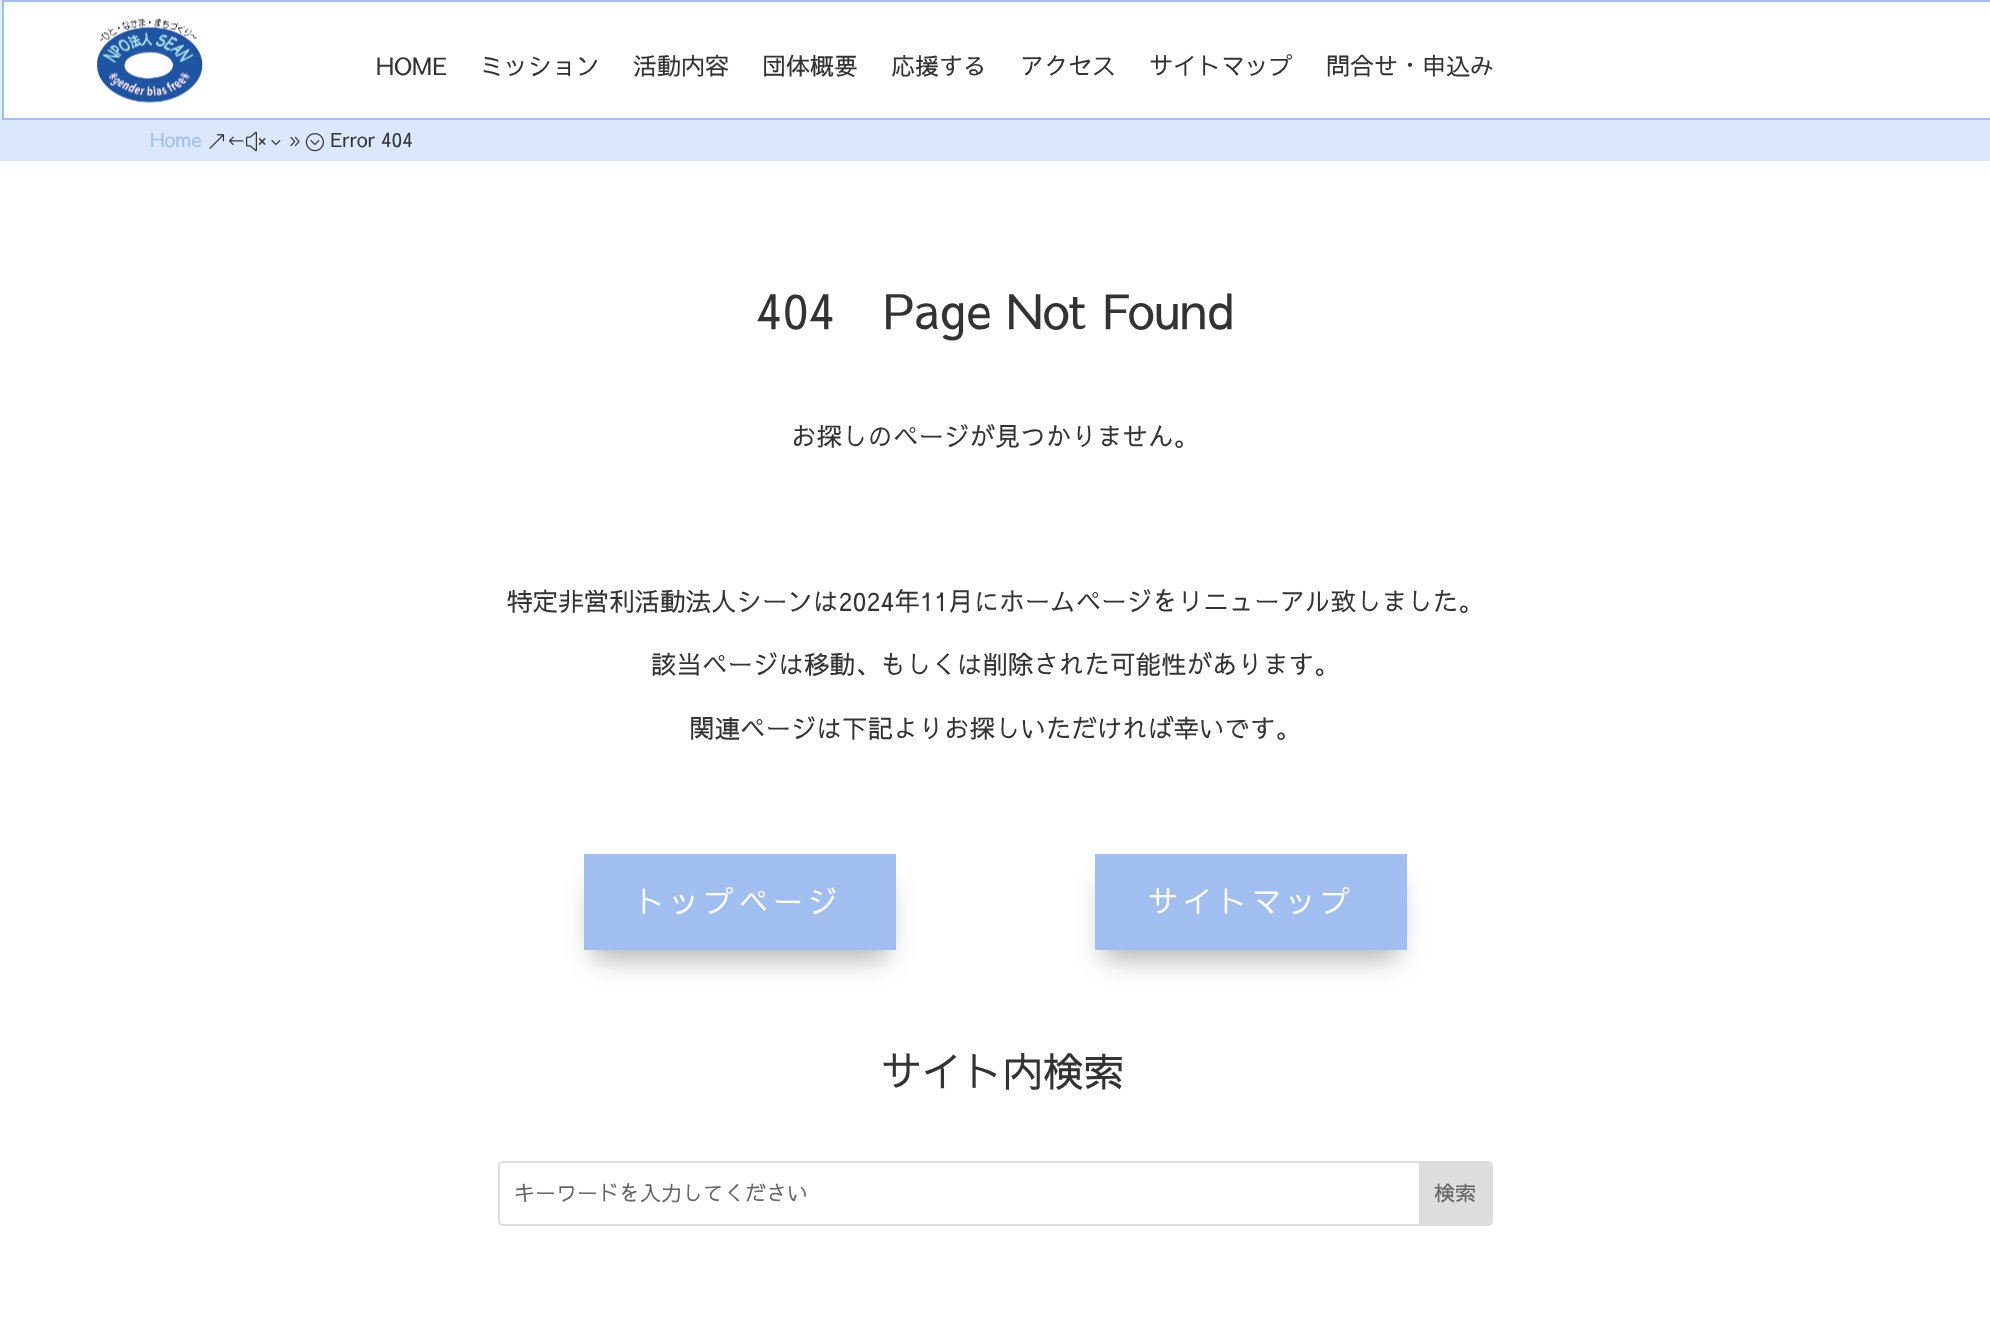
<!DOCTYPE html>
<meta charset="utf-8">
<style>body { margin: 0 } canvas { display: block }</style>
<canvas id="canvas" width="1990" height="1327"></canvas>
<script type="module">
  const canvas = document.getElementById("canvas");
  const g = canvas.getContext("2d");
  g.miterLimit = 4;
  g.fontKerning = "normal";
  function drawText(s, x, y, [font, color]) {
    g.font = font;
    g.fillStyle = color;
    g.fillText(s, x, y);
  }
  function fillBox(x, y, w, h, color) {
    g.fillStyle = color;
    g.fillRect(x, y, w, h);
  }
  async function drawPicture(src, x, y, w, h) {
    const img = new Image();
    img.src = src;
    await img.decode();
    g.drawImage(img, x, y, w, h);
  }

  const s1 = ["24px Sawarabi Gothic", "#333333"];
  const s2 = ["19.5px Sawarabi Gothic", "#A0BEEF"];
  const s3 = ["19.5px Sawarabi Gothic", "#333333"];
  const s4 = ["48px Sawarabi Gothic", "#333333"];
  const s5 = ["25.5px Sawarabi Gothic", "#333333"];
  const s6 = ["30px Sawarabi Gothic", "#FFFFFF"];
  const s7 = ["40.5px Sawarabi Gothic", "#333333"];
  const s8 = ["21px Sawarabi Gothic", "#666666"];

  fillBox(0, 0, 1990, 1327, "#DBE7FB");
  fillBox(0, 0, 2, 120, "#E4EDFB");
  g.fillStyle = "#FFFFFF";
  g.beginPath();
  g.rect(3, 1, 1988, 118);
  g.fill();
  g.strokeStyle = "#A0BEEF";
  g.lineWidth = 2;
  g.stroke();
  await drawPicture("pic1.png", 97, 18, 106, 85);
  drawText("HOME", 376, 75, s1);
  drawText("ミッション", 480, 75, s1);
  drawText("活動内容", 633, 75, s1);
  drawText("団体概要", 762, 75, s1);
  drawText("応援する", 891, 75, s1);
  drawText("アクセス", 1020, 75, s1);
  drawText("サイトマップ", 1149, 75, s1);
  drawText("問合せ・申込み", 1326, 75, s1);
  drawText("Home", 150, 147, s2);
  await drawPicture("pic2.png", 209, 131, 115, 21);
  drawText("Error 404", 330, 147, s3);
  fillBox(0, 161, 1990, 1166, "#FFFFFF");
  drawText("404　Page Not Found", 756, 329, s4);
  drawText("お探しのページが見つかりません。", 791, 446, s5);
  drawText("特定非営利活動法人シーンは2024年11月にホームページをリニューアル致しました。", 507, 611, s5);
  drawText("該当ページは移動、もしくは削除された可能性があります。", 651, 674, s5);
  drawText("関連ページは下記よりお探しいただければ幸いです。", 689, 738, s5);
  g.fillStyle = "rgba(0, 0, 0, 0.3)";
  g.filter = "blur(13.5px)";
  g.beginPath();
  g.rect(593, 881, 294, 78);
  g.fill();
  g.filter = "none";
  fillBox(584, 854, 312, 96, "#A0BEEF");
  g.letterSpacing = "4.5px";
  drawText("トップページ", 635, 913, s6);
  g.fillStyle = "rgba(0, 0, 0, 0.3)";
  g.filter = "blur(13.5px)";
  g.beginPath();
  g.rect(1104, 881, 294, 78);
  g.fill();
  g.filter = "none";
  fillBox(1095, 854, 312, 96, "#A0BEEF");
  drawText("サイトマップ", 1148, 913, s6);
  g.letterSpacing = "0px";
  drawText("サイト内検索", 881, 1087, s7);
  g.beginPath();
  g.roundRect(499, 1162, 993, 63, 4);
  g.strokeStyle = "#DDDDDD";
  g.stroke();
  drawText("キーワードを入力してください", 514, 1201, s8);
  g.fillStyle = "#DDDDDD";
  g.beginPath();
  g.roundRect(1419, 1163, 72, 61, [0, 3, 3, 0]);
  g.fill();
  drawText("検索", 1434, 1201, s8);
</script>
